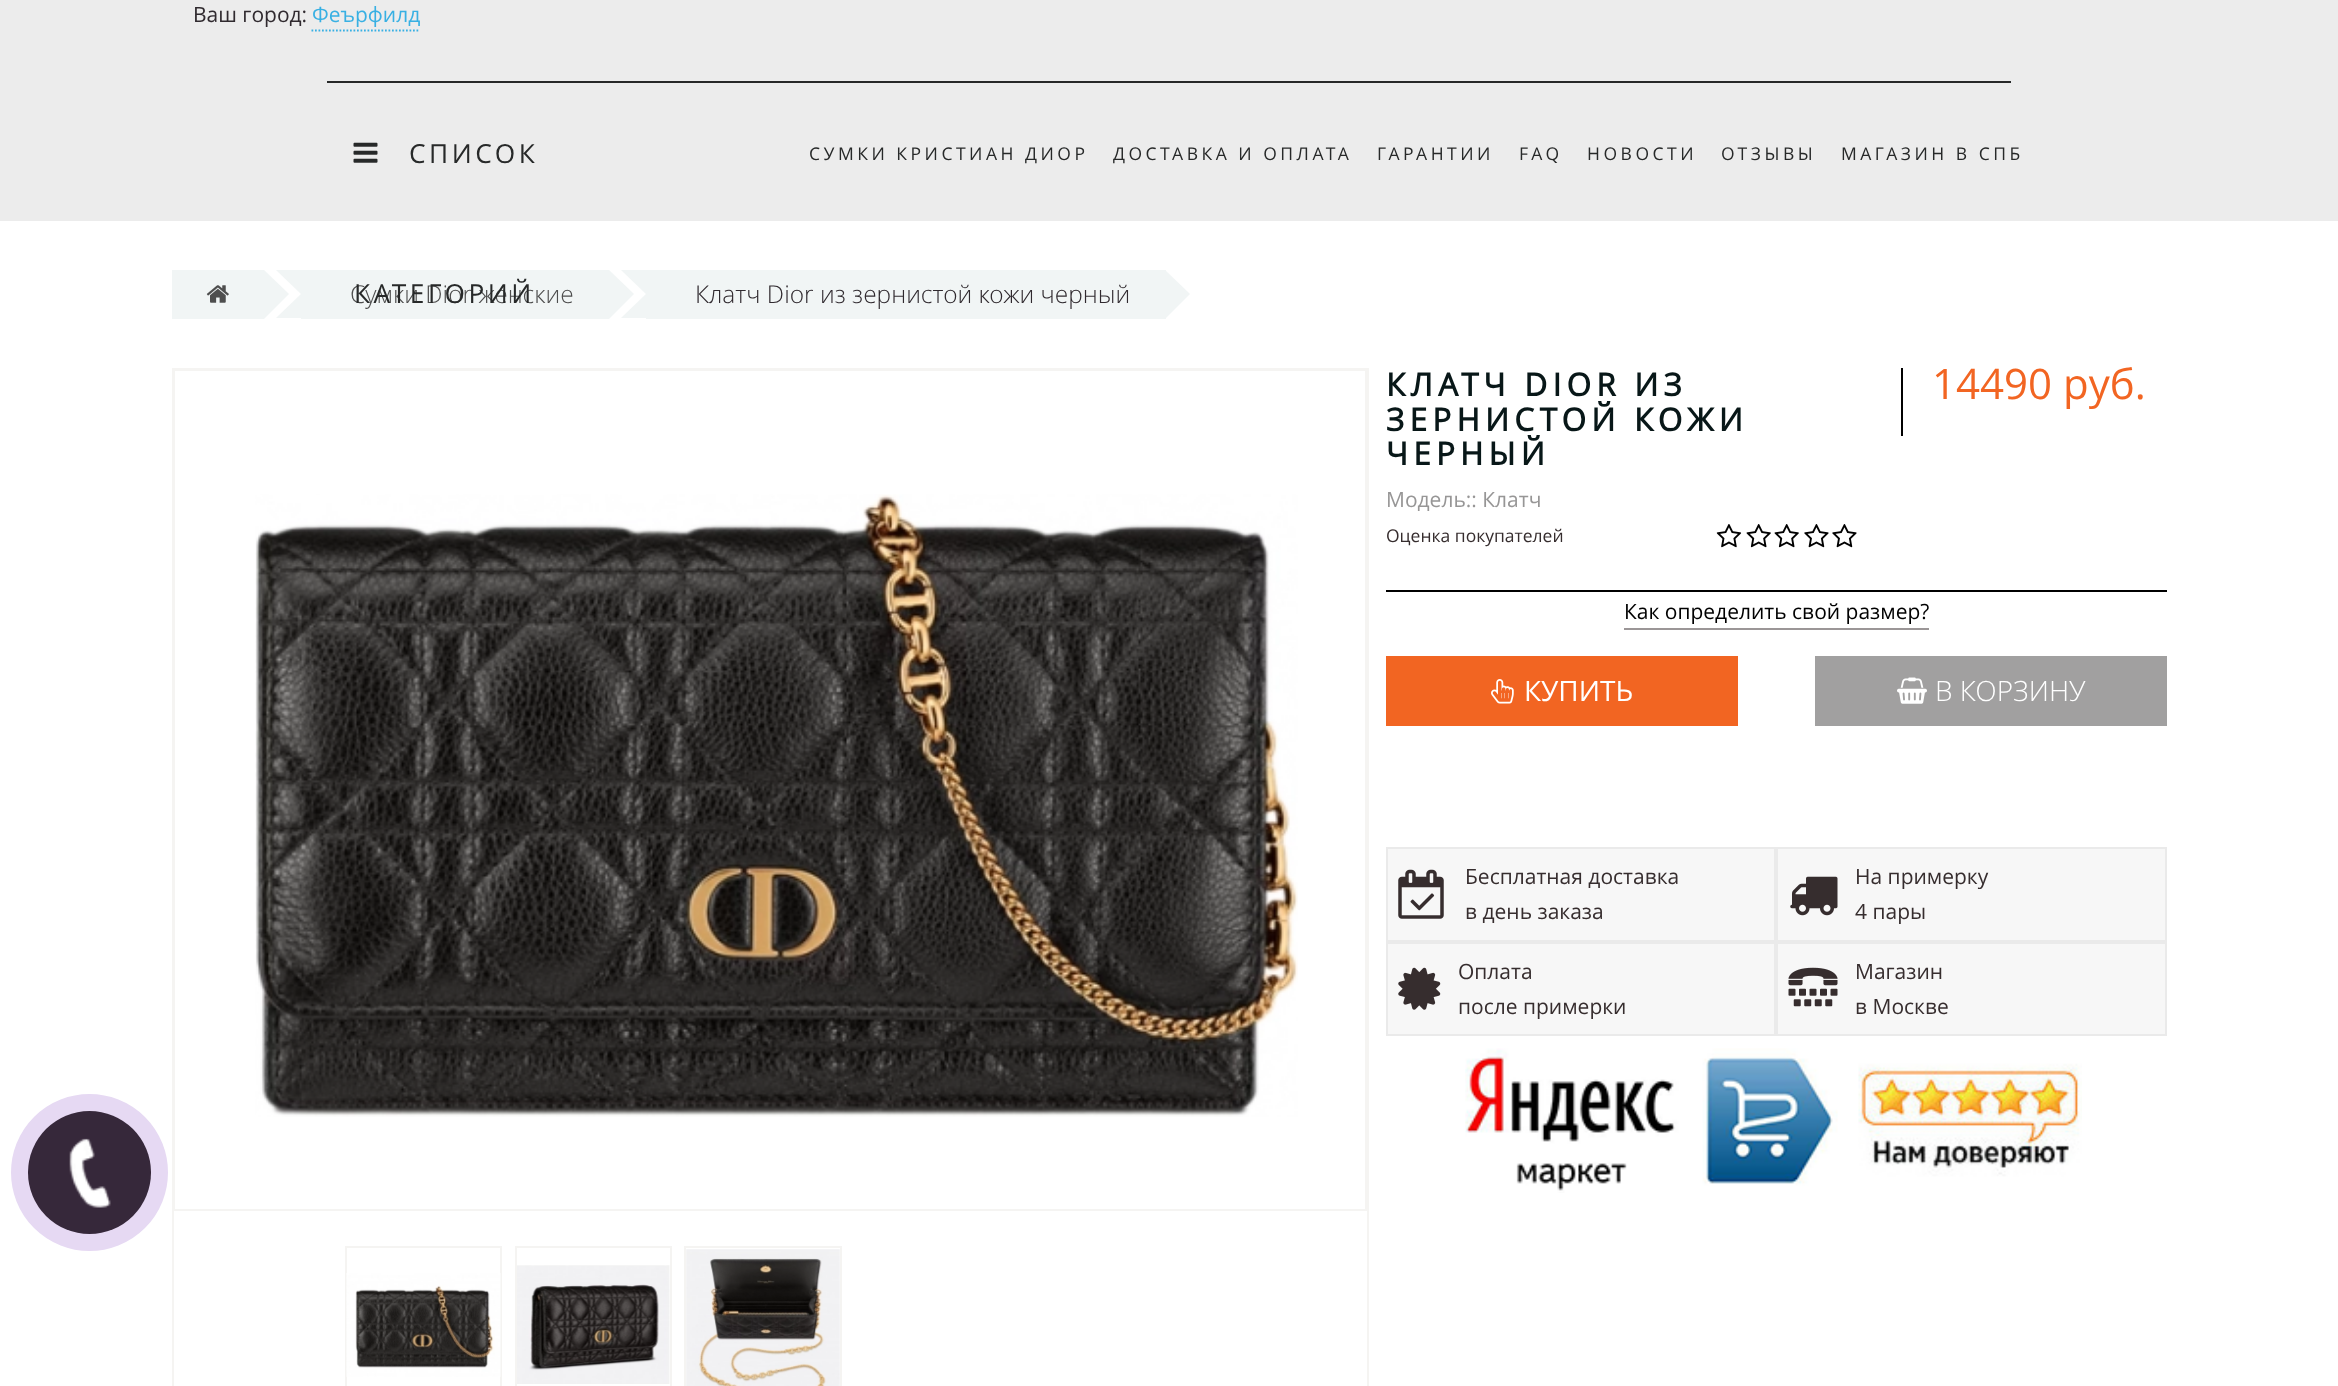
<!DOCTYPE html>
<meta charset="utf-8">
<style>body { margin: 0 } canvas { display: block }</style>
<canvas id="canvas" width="2338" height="1386"></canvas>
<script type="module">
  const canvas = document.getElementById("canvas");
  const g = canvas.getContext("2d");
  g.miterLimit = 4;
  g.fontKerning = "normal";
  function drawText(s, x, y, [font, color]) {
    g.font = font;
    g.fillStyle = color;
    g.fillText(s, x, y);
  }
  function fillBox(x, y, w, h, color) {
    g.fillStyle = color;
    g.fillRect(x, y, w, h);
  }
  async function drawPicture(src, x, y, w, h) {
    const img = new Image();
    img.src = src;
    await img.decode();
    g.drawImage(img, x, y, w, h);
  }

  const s1 = ["21px Open Sans", "#302A2F"];
  const s2 = ["21px Open Sans", "#38B0E3"];
  const s3 = ["26.25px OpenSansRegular", "#272929"];
  const s4 = ["300 24.5px Open Sans", "#4E4E4E"];
  const s5 = ["17.5px OpenSansRegular", "#272929"];
  const s6 = ["300 24.5px Open Sans", "#302A2F"];
  const s7 = ["bold 31.5px OpenSansRegular", "#081718"];
  const s8 = ["21px Open Sans", "#979696"];
  const s9 = ["17.5px Open Sans", "#362D2E"];
  const s10 = ["42px Open Sans", "#F26522"];
  const s11 = ["21px Open Sans", "#000000"];
  const s12 = ["28px Open Sans", "#FFFFFF"];
  const s13 = ["300 28px Open Sans", "#FFFFFF"];
  const s14 = ["21px Open Sans", "#362D2E"];

  fillBox(0, 0, 2338, 1386, "#FFFFFF");
  fillBox(0, 0, 2338, 221, "#ECECEC");
  drawText("Ваш город:", 193, 22, s1);
  drawText("Феърфилд", 312, 22, s2);
  g.beginPath();
  g.moveTo(311.5, 30.5);
  g.lineTo(420, 30.5);
  g.strokeStyle = "#38B0E3";
  g.lineWidth = 1.8;
  g.setLineDash([1.75, 1.75]);
  g.stroke();
  fillBox(327, 81, 1684, 2, "#272929");
  await drawPicture("pic1.png", 353, 142, 25, 21);
  g.letterSpacing = "3.5px";
  drawText("СПИСОК", 409, 163, s3);
  fillBox(326, 270, 283, 49, "#F1F5F5");
  g.letterSpacing = "0px";
  drawText("Сумки Dior женские", 350, 303, s4);
  g.letterSpacing = "3.5px";
  drawText("КАТЕГОРИЙ", 354, 303, s3);
  drawText("СУМКИ КРИСТИАН ДИОР", 809, 160, s5);
  drawText("ДОСТАВКА И ОПЛАТА", 1113, 160, s5);
  drawText("ГАРАНТИИ", 1377, 160, s5);
  drawText("FAQ", 1519, 160, s5);
  drawText("НОВОСТИ", 1587, 160, s5);
  drawText("ОТЗЫВЫ", 1721, 160, s5);
  drawText("МАГАЗИН В СПБ", 1841, 160, s5);
  fillBox(172, 270, 92, 49, "#F1F5F5");
  await drawPicture("pic2.png", 206, 285, 23, 18);
  g.beginPath();
  g.moveTo(240, 294);
  g.lineTo(264, 270);
  g.lineTo(289, 294);
  g.lineTo(264, 319);
  g.closePath();
  g.fill();
  g.beginPath();
  g.moveTo(276, 270);
  g.lineTo(326, 270);
  g.lineTo(301, 294);
  g.closePath();
  g.fill();
  fillBox(301, 270, 25, 49, "#F1F5F5");
  g.beginPath();
  g.moveTo(326, 318);
  g.lineTo(276, 318);
  g.lineTo(301, 294);
  g.closePath();
  g.fill();
  g.beginPath();
  g.moveTo(584, 294);
  g.lineTo(609, 270);
  g.lineTo(634, 294);
  g.lineTo(609, 319);
  g.closePath();
  g.fill();
  fillBox(670, 270, 496, 49, "#F1F5F5");
  g.beginPath();
  g.moveTo(621, 270);
  g.lineTo(670, 270);
  g.lineTo(646, 294);
  g.closePath();
  g.fill();
  fillBox(646, 270, 24, 49, "#F1F5F5");
  g.beginPath();
  g.moveTo(670, 318);
  g.lineTo(621, 318);
  g.lineTo(646, 294);
  g.closePath();
  g.fill();
  g.letterSpacing = "0px";
  drawText("Клатч Dior из зернистой кожи черный", 695, 303, s6);
  g.fillStyle = "#F1F5F5";
  g.beginPath();
  g.moveTo(1140, 294);
  g.lineTo(1165, 270);
  g.lineTo(1190, 294);
  g.lineTo(1165, 319);
  g.closePath();
  g.fill();
  g.strokeStyle = "#F5F4F2";
  g.lineWidth = 2;
  g.setLineDash([]);
  g.strokeRect(173, 369, 1195, 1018);
  g.strokeRect(174, 370, 1192, 840);
  await drawPicture("pic3.png", 255, 494, 1043, 623);
  g.strokeRect(346, 1247, 155, 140);
  await drawPicture("pic4.png", 346, 1273, 155, 104);
  g.strokeRect(516, 1247, 155, 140);
  await drawPicture("pic5.png", 517, 1265, 153, 119);
  g.strokeRect(685, 1247, 156, 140);
  await drawPicture("pic6.png", 686, 1249, 154, 137);
  fillBox(1386, 590, 781, 2, "#000000");
  g.letterSpacing = "5.25px";
  drawText("КЛАТЧ DIOR ИЗ", 1386, 396, s7);
  drawText("ЗЕРНИСТОЙ КОЖИ", 1386, 431, s7);
  drawText("ЧЕРНЫЙ", 1386, 465, s7);
  g.letterSpacing = "0px";
  drawText("Модель:: Клатч", 1386, 507, s8);
  drawText("Оценка покупателей", 1386, 542, s9);
  await drawPicture("pic7.png", 1716, 524, 26, 24);
  await drawPicture("pic8.png", 1746, 524, 25, 24);
  await drawPicture("pic8.png", 1774, 524, 25, 24);
  await drawPicture("pic9.png", 1804, 524, 25, 24);
  await drawPicture("pic9.png", 1832, 524, 25, 24);
  fillBox(1901, 368, 2, 68, "#000000");
  drawText("14490 руб.", 1932, 399, s10);
  fillBox(1624, 628, 305, 2, "#9B9697");
  drawText("Как определить свой размер?", 1624, 619, s11);
  fillBox(1386, 656, 352, 70, "#F26522");
  await drawPicture("pic10.png", 1491, 679, 23, 25);
  drawText("КУПИТЬ", 1524, 701, s12);
  fillBox(1815, 656, 352, 70, "#A1A0A0");
  await drawPicture("pic11.png", 1897, 677, 30, 27);
  drawText("В КОРЗИНУ", 1935, 701, s13);
  g.fillStyle = "#F7F7F7";
  g.beginPath();
  g.rect(1387, 848, 388, 93);
  g.fill();
  g.strokeStyle = "#EAEAEA";
  g.stroke();
  await drawPicture("pic12.png", 1398, 869, 46, 50);
  drawText("Бесплатная доставка", 1465, 884, s14);
  drawText("в день заказа", 1465, 919, s14);
  g.fillStyle = "#F7F7F7";
  g.beginPath();
  g.rect(1777, 848, 389, 93);
  g.fill();
  g.stroke();
  await drawPicture("pic13.png", 1790, 876, 48, 40);
  drawText("На примерку", 1855, 884, s14);
  drawText("4 пары", 1855, 919, s14);
  g.fillStyle = "#F7F7F7";
  g.beginPath();
  g.rect(1387, 943, 388, 92);
  g.fill();
  g.stroke();
  await drawPicture("pic14.png", 1398, 967, 43, 43);
  drawText("Оплата", 1458, 979, s14);
  drawText("после примерки", 1458, 1014, s14);
  g.fillStyle = "#F7F7F7";
  g.beginPath();
  g.rect(1777, 943, 389, 92);
  g.fill();
  g.stroke();
  await drawPicture("pic15.png", 1788, 967, 50, 40);
  drawText("Магазин", 1855, 979, s14);
  drawText("в Москве", 1855, 1014, s14);
  await drawPicture("pic16.png", 1465, 1048, 617, 145);
  g.beginPath();
  g.arc(89.5, 1172.5, 69.5, 0, Math.PI * 2);
  g.strokeStyle = "#E6D9F3";
  g.lineWidth = 18;
  g.stroke();
  g.fillStyle = "#36283A";
  g.beginPath();
  g.arc(89.5, 1172.5, 61.5, 0, Math.PI * 2);
  g.fill();
  await drawPicture("pic17.png", 69, 1138, 42, 70);
</script>
